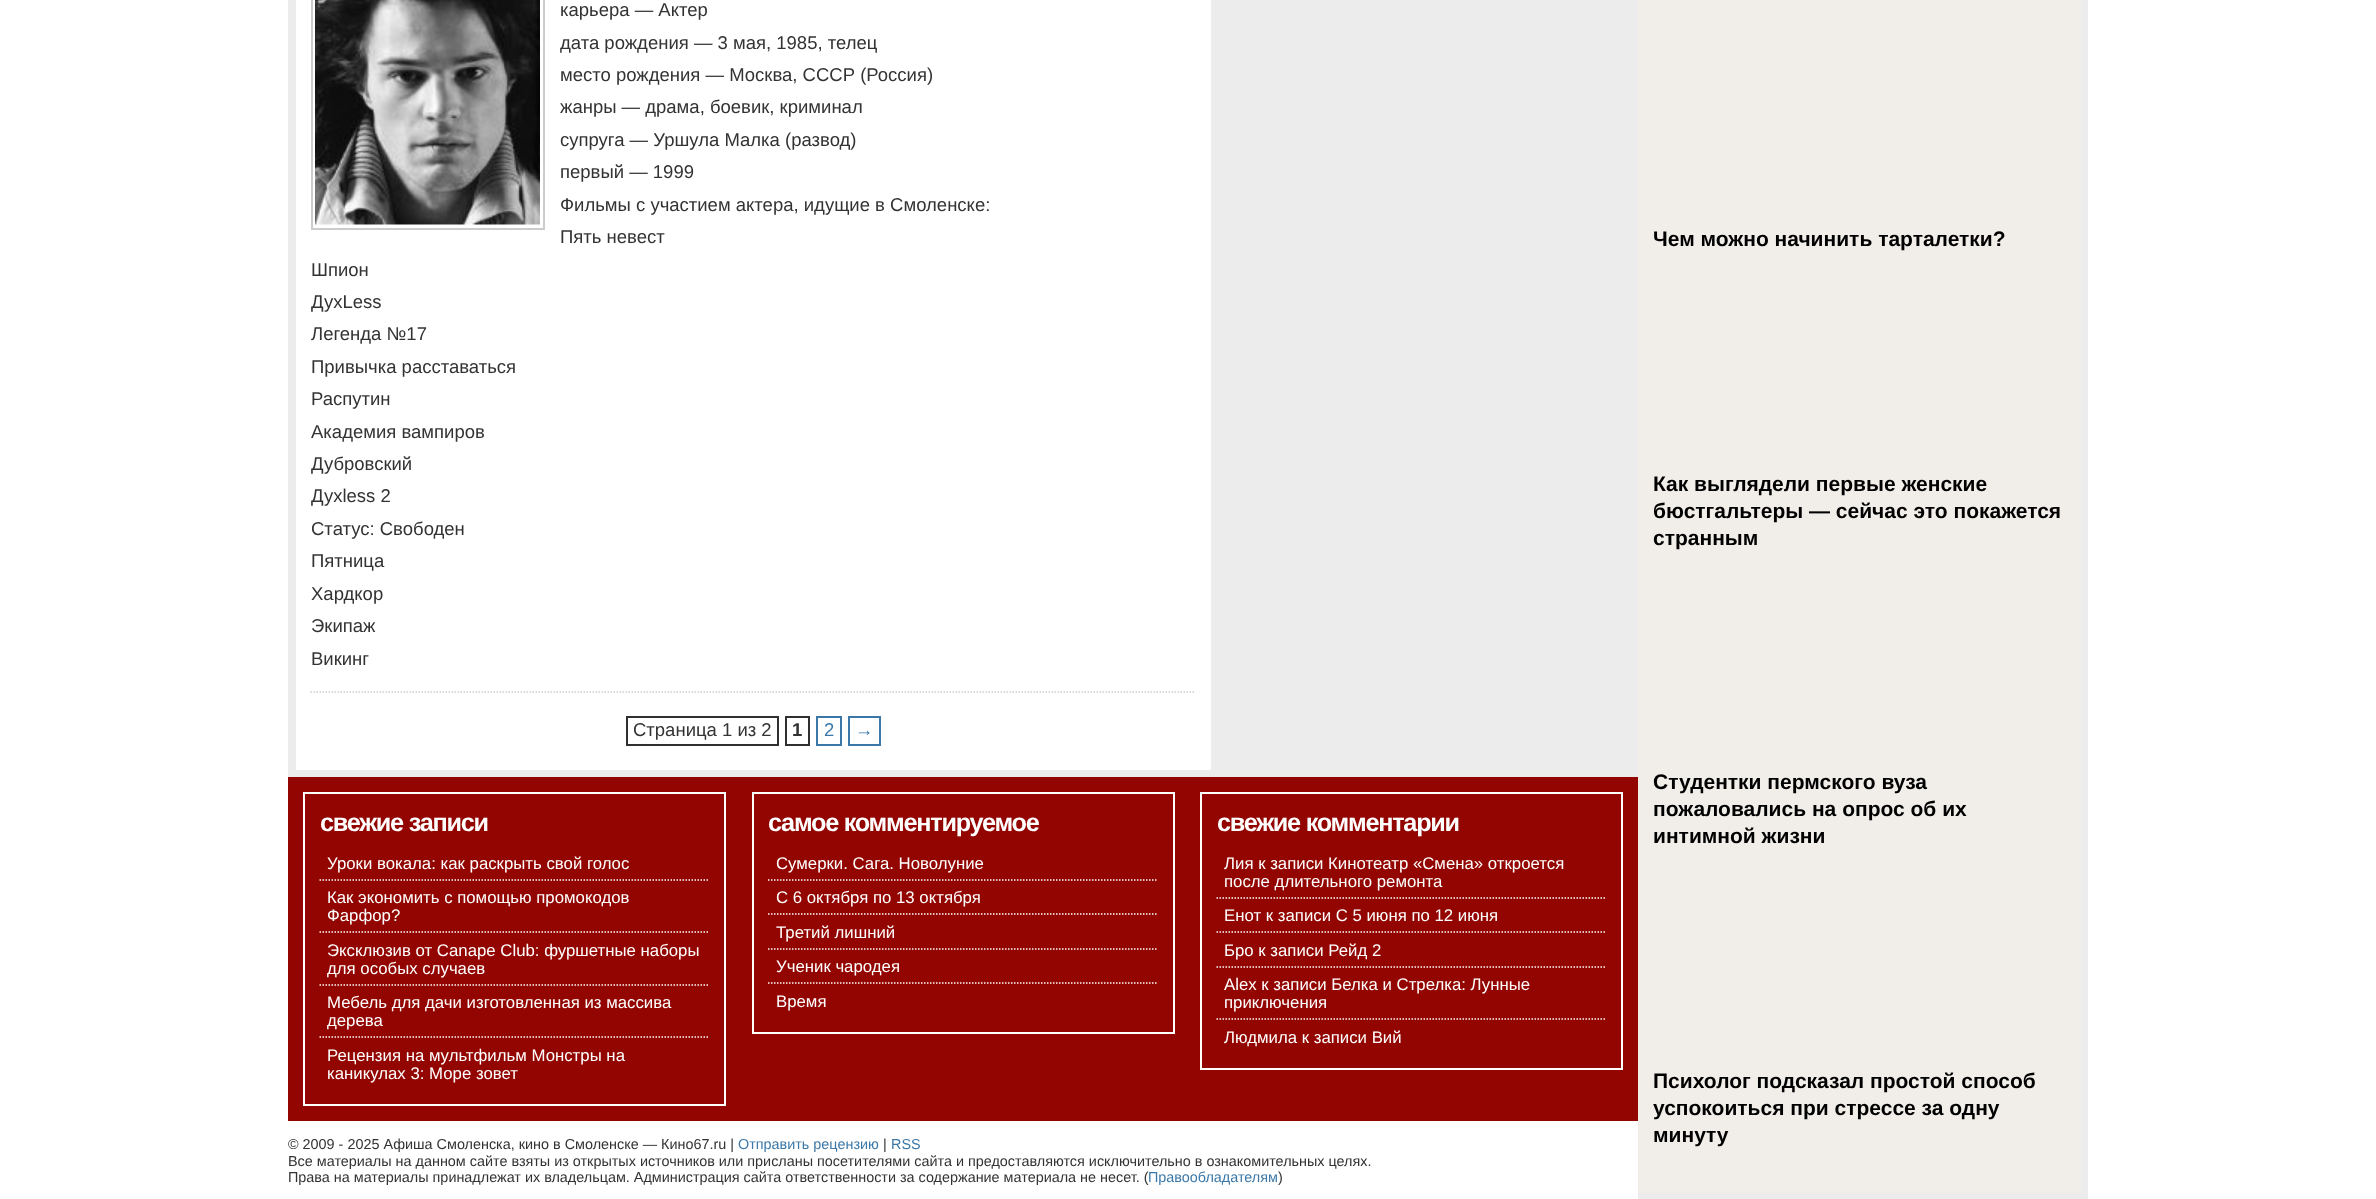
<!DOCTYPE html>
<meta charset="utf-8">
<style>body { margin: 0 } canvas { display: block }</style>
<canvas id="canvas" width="2376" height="1199"></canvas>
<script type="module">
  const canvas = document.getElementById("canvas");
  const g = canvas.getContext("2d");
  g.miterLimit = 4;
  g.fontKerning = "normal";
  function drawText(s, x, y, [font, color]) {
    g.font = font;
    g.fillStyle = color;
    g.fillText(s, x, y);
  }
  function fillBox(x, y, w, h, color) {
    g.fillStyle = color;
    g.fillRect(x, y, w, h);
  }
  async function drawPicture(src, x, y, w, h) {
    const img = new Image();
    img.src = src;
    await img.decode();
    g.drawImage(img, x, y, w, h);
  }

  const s1 = ["18.5px Liberation Sans", "#333333"];
  const s2 = ["bold 18.5px Liberation Sans", "#333333"];
  const s3 = ["18.5px Liberation Sans", "#3C78A7"];
  const s4 = ["bold 25.25px Liberation Sans", "#FFFFFF"];
  const s5 = ["16.8px Liberation Sans", "#FFFFFF"];
  const s6 = ["14.4px Liberation Sans", "#333333"];
  const s7 = ["14.4px Liberation Sans", "#3C78A7"];
  const s8 = ["bold 21px Liberation Sans", "#000000"];

  fillBox(0, 0, 2376, 1199, "#FFFFFF");
  fillBox(288, 0, 1350, 777, "#ECECEC");
  fillBox(296, 0, 915, 770, "#FFFFFF");
  g.beginPath();
  g.moveTo(310.5, 692);
  g.lineTo(1195.5, 692);
  g.strokeStyle = "#CCCCCC";
  g.lineWidth = 1.5;
  g.setLineDash([1.5, 1.5]);
  g.stroke();
  g.lineWidth = 2;
  g.setLineDash([]);
  g.strokeRect(312, -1, 232, 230);
  await drawPicture("pic1.png", 315, 0, 225, 225);
  drawText("карьера — Актер", 560, 16, s1);
  drawText("дата рождения — 3 мая, 1985, телец", 560, 49, s1);
  drawText("место рождения — Москва, СССР (Россия)", 560, 81, s1);
  drawText("жанры — драма, боевик, криминал", 560, 113, s1);
  drawText("супруга — Уршула Малка (развод)", 560, 146, s1);
  drawText("первый — 1999", 560, 178, s1);
  drawText("Фильмы с участием актера, идущие в Смоленске:", 560, 211, s1);
  drawText("Пять невест", 560, 243, s1);
  drawText("Шпион", 311, 276, s1);
  drawText("ДухLess", 311, 308, s1);
  drawText("Легенда №17", 311, 340, s1);
  drawText("Привычка расставаться", 311, 373, s1);
  drawText("Распутин", 311, 405, s1);
  drawText("Академия вампиров", 311, 438, s1);
  drawText("Дубровский", 311, 470, s1);
  drawText("Духless 2", 311, 502, s1);
  drawText("Статус: Свободен", 311, 535, s1);
  drawText("Пятница", 311, 567, s1);
  drawText("Хардкор", 311, 600, s1);
  drawText("Экипаж", 311, 632, s1);
  drawText("Викинг", 311, 665, s1);
  g.strokeStyle = "#303030";
  g.strokeRect(627, 717, 151, 28);
  drawText("Страница 1 из 2", 633, 736, s1);
  g.strokeRect(786, 717, 23, 28);
  drawText("1", 792, 736, s2);
  g.strokeStyle = "#3C78A7";
  g.strokeRect(817, 717, 24, 28);
  drawText("2", 824, 736, s3);
  g.strokeRect(849, 717, 31, 28);
  drawText("→", 855, 736, s3);
  fillBox(288, 777, 1350, 344, "#920500");
  g.strokeStyle = "#FFFFFF";
  g.strokeRect(304, 793, 421, 312);
  g.letterSpacing = "-1.25px";
  drawText("свежие записи", 320, 831, s4);
  g.letterSpacing = "0px";
  drawText("Уроки вокала: как раскрыть свой голос", 327, 869, s5);
  g.beginPath();
  g.moveTo(319.5, 880);
  g.lineTo(709.5, 880);
  g.lineWidth = 1.5;
  g.setLineDash([1.5, 1.5]);
  g.stroke();
  drawText("Как экономить с помощью промокодов", 327, 903, s5);
  drawText("Фарфор?", 327, 921, s5);
  g.beginPath();
  g.moveTo(319.5, 932);
  g.lineTo(709.5, 932);
  g.stroke();
  drawText("Эксклюзив от Canape Club: фуршетные наборы", 327, 956, s5);
  drawText("для особых случаев", 327, 974, s5);
  g.beginPath();
  g.moveTo(319.5, 985);
  g.lineTo(709.5, 985);
  g.stroke();
  drawText("Мебель для дачи изготовленная из массива", 327, 1008, s5);
  drawText("дерева", 327, 1026, s5);
  g.beginPath();
  g.moveTo(319.5, 1037);
  g.lineTo(709.5, 1037);
  g.stroke();
  drawText("Рецензия на мультфильм Монстры на", 327, 1061, s5);
  drawText("каникулах 3: Море зовет", 327, 1079, s5);
  g.lineWidth = 2;
  g.setLineDash([]);
  g.strokeRect(753, 793, 421, 240);
  g.letterSpacing = "-1.25px";
  drawText("самое комментируемое", 768, 831, s4);
  g.letterSpacing = "0px";
  drawText("Сумерки. Сага. Новолуние", 776, 869, s5);
  g.beginPath();
  g.moveTo(768, 880);
  g.lineTo(1158, 880);
  g.lineWidth = 1.5;
  g.setLineDash([1.5, 1.5]);
  g.stroke();
  drawText("С 6 октября по 13 октября", 776, 903, s5);
  g.beginPath();
  g.moveTo(768, 914);
  g.lineTo(1158, 914);
  g.stroke();
  drawText("Третий лишний", 776, 938, s5);
  g.beginPath();
  g.moveTo(768, 949);
  g.lineTo(1158, 949);
  g.stroke();
  drawText("Ученик чародея", 776, 972, s5);
  g.beginPath();
  g.moveTo(768, 983);
  g.lineTo(1158, 983);
  g.stroke();
  drawText("Время", 776, 1007, s5);
  g.lineWidth = 2;
  g.setLineDash([]);
  g.strokeRect(1201, 793, 421, 276);
  g.letterSpacing = "-1.25px";
  drawText("свежие комментарии", 1217, 831, s4);
  g.letterSpacing = "0px";
  drawText("Лия к записи Кинотеатр «Смена» откроется", 1224, 869, s5);
  drawText("после длительного ремонта", 1224, 887, s5);
  g.beginPath();
  g.moveTo(1216.5, 898);
  g.lineTo(1606.5, 898);
  g.lineWidth = 1.5;
  g.setLineDash([1.5, 1.5]);
  g.stroke();
  drawText("Енот к записи С 5 июня по 12 июня", 1224, 921, s5);
  g.beginPath();
  g.moveTo(1216.5, 932);
  g.lineTo(1606.5, 932);
  g.stroke();
  drawText("Бро к записи Рейд 2", 1224, 956, s5);
  g.beginPath();
  g.moveTo(1216.5, 967);
  g.lineTo(1606.5, 967);
  g.stroke();
  drawText("Alex к записи Белка и Стрелка: Лунные", 1224, 990, s5);
  drawText("приключения", 1224, 1008, s5);
  g.beginPath();
  g.moveTo(1216.5, 1019);
  g.lineTo(1606.5, 1019);
  g.stroke();
  drawText("Людмила к записи Вий", 1224, 1043, s5);
  drawText("© 2009 - 2025 Афиша Смоленска, кино в Смоленске — Кино67.ru |", 288, 1149, s6);
  drawText("Отправить рецензию", 738, 1149, s7);
  drawText("|", 883, 1149, s6);
  drawText("RSS", 891, 1149, s7);
  drawText("Все материалы на данном сайте взяты из открытых источников или присланы посетителями сайта и предоставляются исключительно в ознакомительных целях.", 288, 1166, s6);
  drawText("Права на материалы принадлежат их владельцам. Администрация сайта ответственности за содержание материала не несет. (", 288, 1182, s6);
  drawText("Правообладателям", 1148, 1182, s7);
  drawText(")", 1278, 1182, s6);
  fillBox(1638, 0, 443, 1193, "#F1EEE9");
  fillBox(2081, 0, 7, 1199, "#ECECEC");
  fillBox(1638, 1193, 450, 6, "#ECECEC");
  drawText("Чем можно начинить тарталетки?", 1653, 246, s8);
  drawText("Как выглядели первые женские", 1653, 491, s8);
  drawText("бюстгальтеры — сейчас это покажется", 1653, 518, s8);
  drawText("странным", 1653, 545, s8);
  drawText("Студентки пермского вуза", 1653, 789, s8);
  drawText("пожаловались на опрос об их", 1653, 816, s8);
  drawText("интимной жизни", 1653, 843, s8);
  drawText("Психолог подсказал простой способ", 1653, 1088, s8);
  drawText("успокоиться при стрессе за одну", 1653, 1115, s8);
  drawText("минуту", 1653, 1142, s8);
</script>
